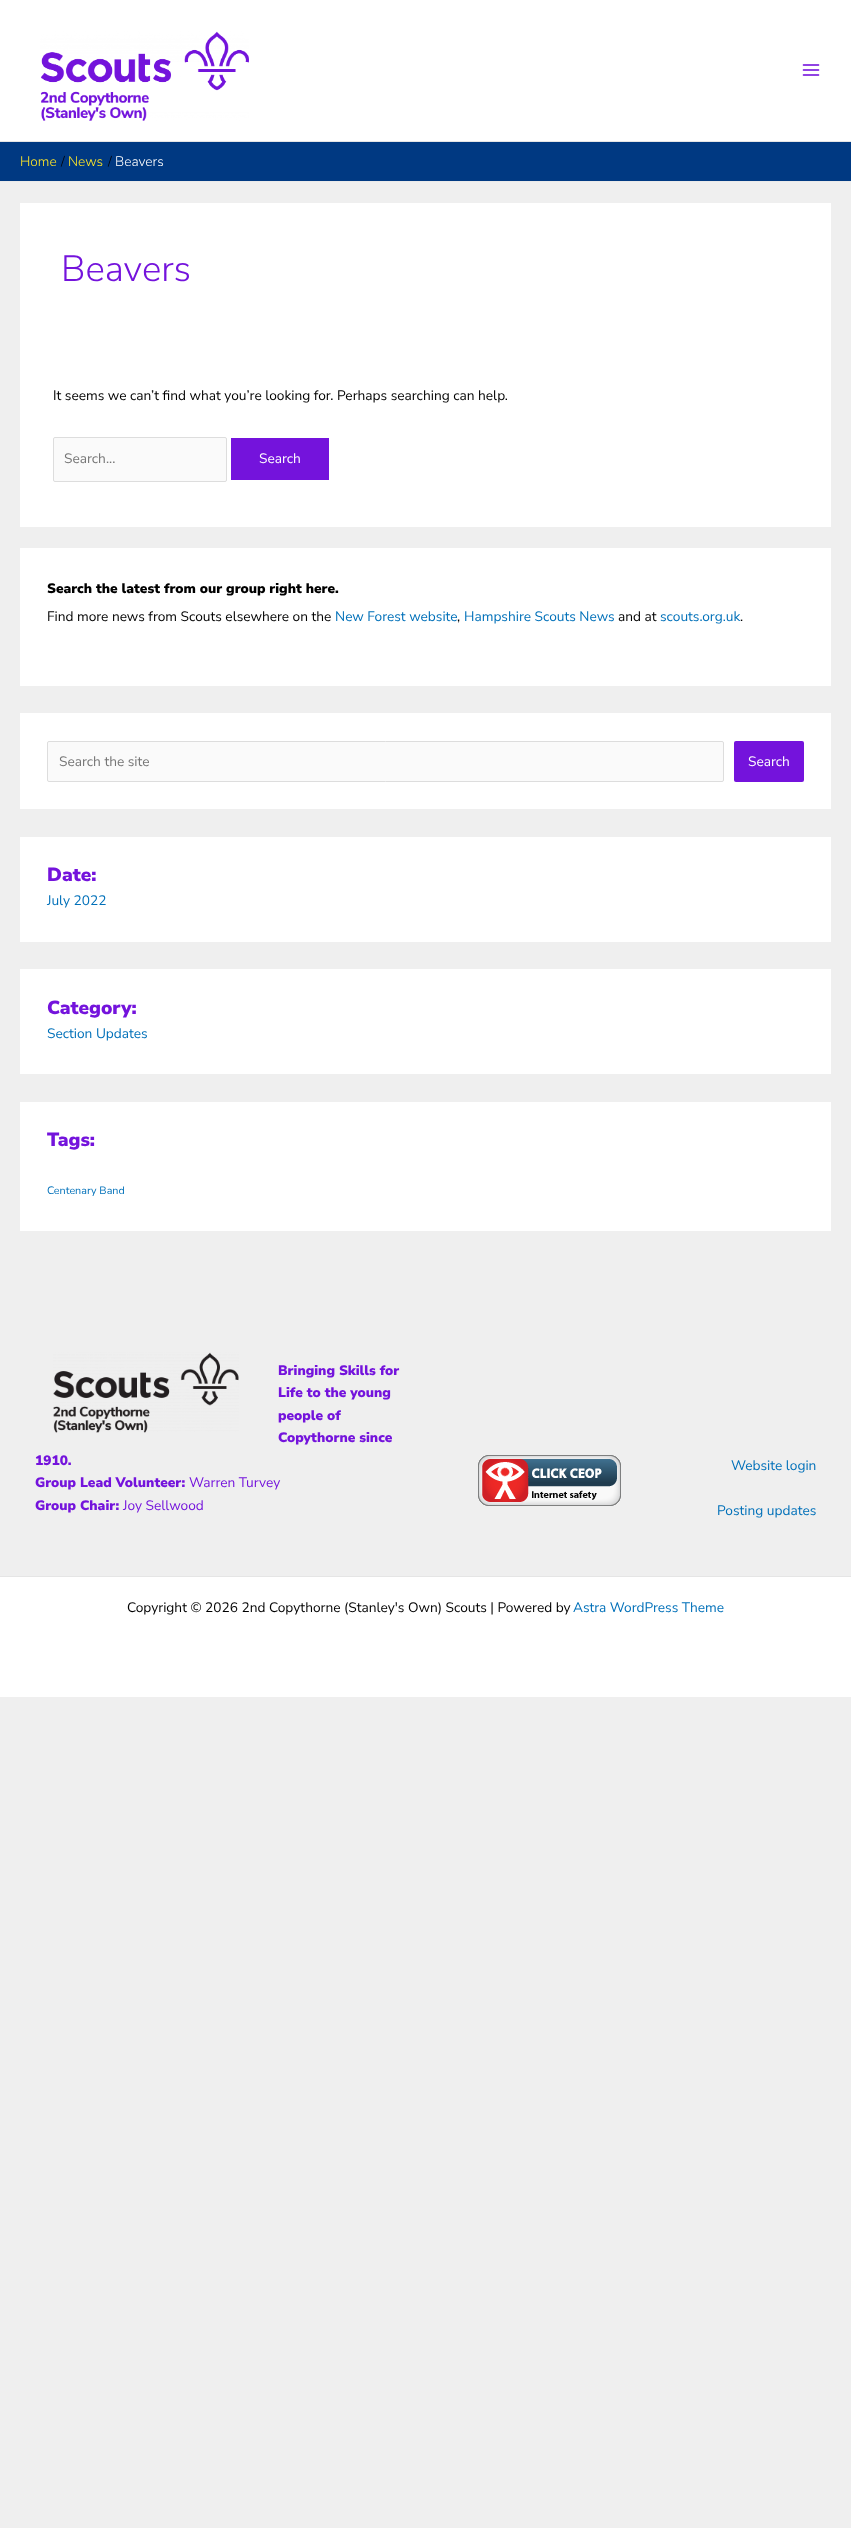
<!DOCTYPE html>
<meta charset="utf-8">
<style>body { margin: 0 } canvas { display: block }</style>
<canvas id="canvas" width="851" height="2528"></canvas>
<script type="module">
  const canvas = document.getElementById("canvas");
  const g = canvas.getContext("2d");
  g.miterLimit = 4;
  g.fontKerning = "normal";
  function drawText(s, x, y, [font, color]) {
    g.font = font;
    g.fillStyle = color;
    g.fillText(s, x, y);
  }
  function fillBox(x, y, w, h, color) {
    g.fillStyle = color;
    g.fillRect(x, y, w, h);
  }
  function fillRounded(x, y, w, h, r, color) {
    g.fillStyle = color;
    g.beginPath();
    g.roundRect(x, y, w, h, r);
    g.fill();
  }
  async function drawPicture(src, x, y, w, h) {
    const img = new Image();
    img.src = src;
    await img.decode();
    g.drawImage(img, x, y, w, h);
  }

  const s1 = ["300 13.7px Nunito Sans", "#FFE627"];
  const s2 = ["300 13.7px Nunito Sans", "#000000"];
  const s3 = ["300 13.7px Nunito Sans", "#FFFFFF"];
  const s4 = ["300 36.5px Nunito Sans", "#7413DC"];
  const s5 = ["13.7px Nunito Sans", "#000000"];
  const s6 = ["13.7px Nunito Sans", "#757575"];
  const s7 = ["13.7px Nunito Sans", "#FFFFFF"];
  const s8 = ["900 13.7px Nunito Sans", "#000000"];
  const s9 = ["13.7px Nunito Sans", "#0170B9"];
  const s10 = ["900 19px Nunito Sans", "#7413DC"];
  const s11 = ["10.75px Nunito Sans", "#0170B9"];
  const s12 = ["900 13.7px Nunito Sans", "#7413DC"];
  const s13 = ["13.7px Nunito Sans", "#7413DC"];

  fillBox(0, 0, 851, 2528, "#EFEFEF");
  fillBox(0, 0, 851, 141, "#FFFFFF");
  fillBox(0, 141, 851, 1, "#E5E5E5");
  await drawPicture("pic1.png", 40, 31, 209, 90);
  await drawPicture("pic2.png", 802, 64, 18, 12);
  fillBox(0, 142, 851, 39, "#003982");
  fillBox(0, 181, 851, 1, "#EAEAEA");
  drawText("Home", 20, 166, s1);
  drawText("/", 61, 166, s2);
  drawText("News", 68, 166, s1);
  drawText("/", 108, 166, s2);
  drawText("Beavers", 115, 166, s3);
  fillBox(20, 203, 811, 324, "#FFFFFF");
  drawText("Beavers", 61, 281, s4);
  drawText("It seems we can’t find what you’re looking for. Perhaps searching can help.", 53, 400, s5);
  g.fillStyle = "#FAFAFA";
  g.beginPath();
  g.roundRect(53.5, 437.5, 173, 44, 1.5);
  g.fill();
  g.strokeStyle = "#DDDDDD";
  g.stroke();
  drawText("Search...", 64, 463, s6);
  fillBox(231, 438, 98, 42, "#7413DC");
  drawText("Search", 259, 463, s7);
  fillBox(20, 548, 811, 138, "#FFFFFF");
  drawText("Search the latest from our group right here.", 47, 593, s8);
  drawText("Find more news from Scouts elsewhere on the", 47, 621, s5);
  drawText("New Forest website", 335, 621, s9);
  drawText(",", 457, 621, s5);
  drawText("Hampshire Scouts News", 464, 621, s9);
  drawText("and at", 618, 621, s5);
  drawText("scouts.org.uk", 660, 621, s9);
  drawText(".", 740, 621, s5);
  fillBox(20, 713, 811, 96, "#FFFFFF");
  g.fillStyle = "#FAFAFA";
  g.beginPath();
  g.roundRect(47.5, 741.5, 676, 40, 1.5);
  g.fill();
  g.stroke();
  drawText("Search the site", 59, 766, s6);
  fillRounded(734, 741, 70, 41, 2, "#7413DC");
  drawText("Search", 748, 766, s7);
  fillBox(20, 837, 811, 105, "#FFFFFF");
  drawText("Date:", 47, 881, s10);
  drawText("July 2022", 47, 905, s9);
  fillBox(20, 969, 811, 105, "#FFFFFF");
  drawText("Category:", 47, 1014, s10);
  drawText("Section Updates", 47, 1038, s9);
  fillBox(20, 1102, 811, 129, "#FFFFFF");
  drawText("Tags:", 47, 1146, s10);
  drawText("Centenary Band", 47, 1194, s11);
  await drawPicture("pic3.png", 53, 1352, 186, 81);
  drawText("Bringing Skills for", 278, 1375, s12);
  drawText("Life to the young", 278, 1397, s12);
  drawText("people of", 278, 1420, s12);
  drawText("Copythorne since", 278, 1442, s12);
  drawText("1910.", 35, 1465, s12);
  drawText("Group Lead Volunteer:", 35, 1487, s12);
  drawText("Warren Turvey", 189, 1487, s13);
  drawText("Group Chair:", 35, 1510, s12);
  drawText("Joy Sellwood", 123, 1510, s13);
  await drawPicture("pic4.png", 478, 1455, 143, 51);
  drawText("Website login", 731, 1470, s9);
  drawText("Posting updates", 717, 1515, s9);
  fillBox(0, 1577, 851, 120, "#FFFFFF");
  fillBox(0, 1576, 851, 1, "#E5E5E5");
  drawText("Copyright © 2026 2nd Copythorne (Stanley's Own) Scouts | Powered by", 127, 1612, s5);
  drawText("Astra WordPress Theme", 573, 1612, s9);
</script>
